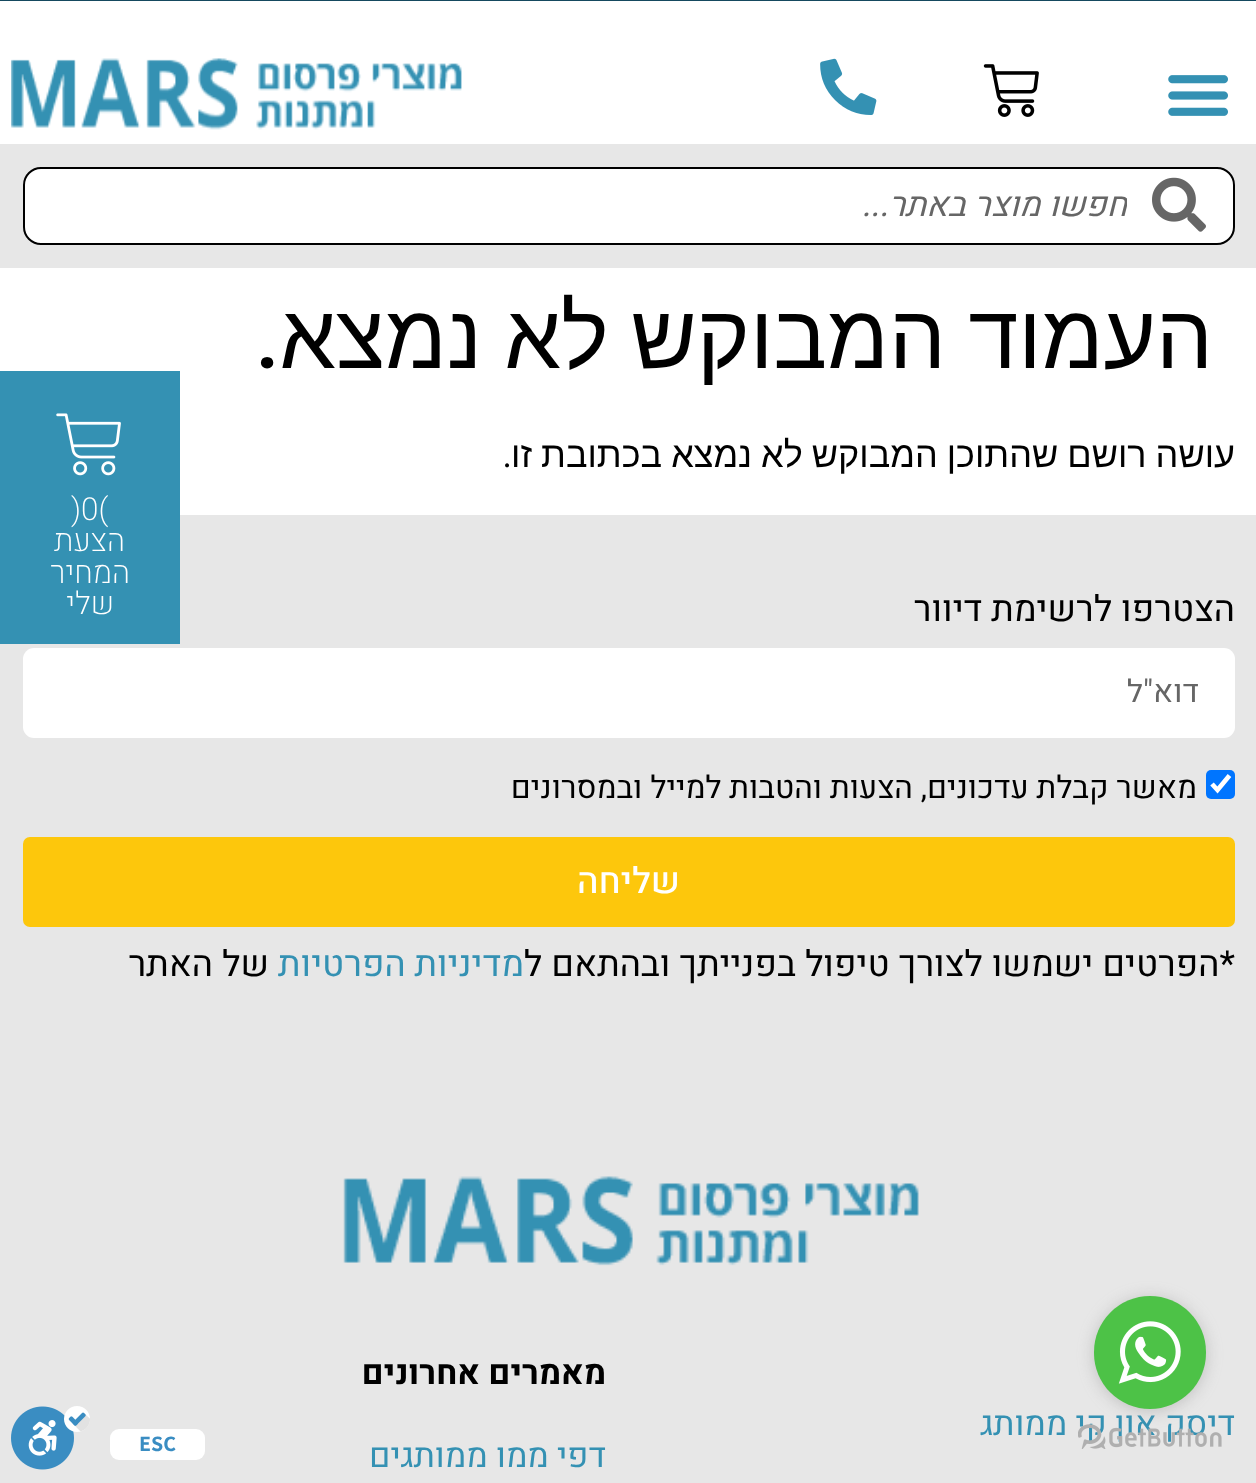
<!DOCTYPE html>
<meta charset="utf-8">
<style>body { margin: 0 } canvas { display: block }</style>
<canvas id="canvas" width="1256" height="1483"></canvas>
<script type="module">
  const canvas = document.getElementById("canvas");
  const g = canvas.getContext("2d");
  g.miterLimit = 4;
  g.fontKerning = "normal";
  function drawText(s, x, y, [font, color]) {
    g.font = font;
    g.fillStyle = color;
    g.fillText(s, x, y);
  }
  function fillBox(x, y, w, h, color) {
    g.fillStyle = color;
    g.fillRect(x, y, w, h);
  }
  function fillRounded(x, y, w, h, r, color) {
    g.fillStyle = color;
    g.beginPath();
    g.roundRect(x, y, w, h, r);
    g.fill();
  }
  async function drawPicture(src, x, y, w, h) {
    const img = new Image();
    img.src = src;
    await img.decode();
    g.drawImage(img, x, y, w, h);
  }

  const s1 = ["italic 33.75px Heebo", "#666666"];
  const s2 = ["90px Liberation Sans", "#000000"];
  const s3 = ["500 90px Roboto", "#000000"];
  const s4 = ["36px Liberation Sans", "#000000"];
  const s5 = ["36px Roboto", "#000000"];
  const s6 = ["200 31.5px Heebo", "#FFFFFF"];
  const s7 = ["36px Heebo", "#000000"];
  const s8 = ["31.5px Heebo", "#666666"];
  const s9 = ["31.5px Heebo", "#000000"];
  const s10 = ["500 36px Heebo", "#FFFFFF"];
  const s11 = ["36px Heebo", "#3491B3"];
  const s12 = ["33.75px Heebo", "#3491B3"];
  const s13 = ["bold 33.75px Heebo", "#000000"];
  const s14 = ["bold 22px Assistant", "#3A8DC2"];

  fillBox(0, 0, 1256, 1483, "#FFFFFF");
  await drawPicture("pic1.png", 1168, 75, 60, 41);
  await drawPicture("pic2.png", 983, 64, 56, 53);
  await drawPicture("pic3.png", 820, 58, 57, 57);
  await drawPicture("pic4.png", 11, 58, 451, 72);
  fillBox(0, 144, 1256, 124, "#E7E7E7");
  g.fillStyle = "#FFFFFF";
  g.beginPath();
  g.roundRect(24, 168, 1210, 76, 17);
  g.fill();
  g.strokeStyle = "#000000";
  g.lineWidth = 2;
  g.stroke();
  await drawPicture("pic5.png", 1152, 177, 54, 55);
  g.save();
  g.beginPath();
  g.rect(83, 180, 1044, 50);
  g.clip();
  g.direction = "rtl";
  drawText("חפשו מוצר באתר...", 1127, 216, s1);
  g.restore();
  g.wordSpacing = "-2.5px";
  g.direction = "rtl";
  drawText("העמוד המבוקש לא נמצא", 1213, 368, s2);
  g.wordSpacing = "0px";
  drawText(".", 280, 368, s3);
  g.wordSpacing = "-1px";
  drawText("עושה רושם שהתוכן המבוקש לא נמצא בכתובת זו", 1235, 467, s4);
  g.wordSpacing = "0px";
  drawText(".", 512, 467, s5);
  fillBox(0, 515, 1256, 968, "#E7E7E7");
  fillBox(0, 371, 180, 273, "#3491B3");
  await drawPicture("pic6.png", 56, 413, 65, 63);
  g.direction = "ltr";
  drawText(")0(", 71, 520, s6);
  g.direction = "rtl";
  drawText("הצעת", 125, 551, s6);
  drawText("המחיר", 130, 583, s6);
  drawText("שלי", 114, 614, s6);
  drawText("הצטרפו לרשימת דיוור", 1235, 621, s7);
  fillRounded(23, 648, 1212, 90, 11, "#FFFFFF");
  drawText("דוא\"ל", 1199, 702, s8);
  fillRounded(1206, 770, 29, 29, 5, "#0075FF");
  g.beginPath();
  g.moveTo(1212, 784);
  g.lineTo(1217.5, 790);
  g.lineTo(1229.5, 775.5);
  g.strokeStyle = "#FFFFFF";
  g.lineWidth = 4.7;
  g.stroke();
  drawText("מאשר קבלת עדכונים, הצעות והטבות למייל ובמסרונים", 1197, 798, s9);
  fillRounded(23, 837, 1212, 90, 7, "#FDC70C");
  drawText("שליחה", 680, 893, s10);
  drawText("*הפרטים ישמשו לצורך טיפול בפנייתך ובהתאם ל", 1235, 976, s7);
  drawText("מדיניות הפרטיות", 524, 976, s11);
  drawText("של האתר", 269, 976, s7);
  await drawPicture("pic7.png", 343, 1176, 576, 90);
  drawText("דיסק און קי ממותג", 1235, 1435, s12);
  drawText("מאמרים אחרונים", 606, 1384, s13);
  drawText("דפי ממו ממותגים", 606, 1467, s12);
  await drawPicture("pic9.png", 1078, 1424, 144, 25);
  g.fillStyle = "rgba(136, 136, 136, 0.4)";
  g.filter = "blur(8px)";
  g.beginPath();
  g.roundRect(1094, 1298, 112, 113, 56);
  g.fill();
  g.filter = "none";
  fillRounded(1094, 1296, 112, 113, 56, "#4DC247");
  await drawPicture("pic8.png", 1118, 1321, 63, 63);
  fillBox(0, 0, 1256, 1, "#15495F");
  fillRounded(110, 1429, 95, 31, 9, "#FFFFFF");
  g.direction = "ltr";
  drawText("ESC", 139, 1451, s14);
  await drawPicture("pic10.png", 11, 1406, 79, 64);
</script>
